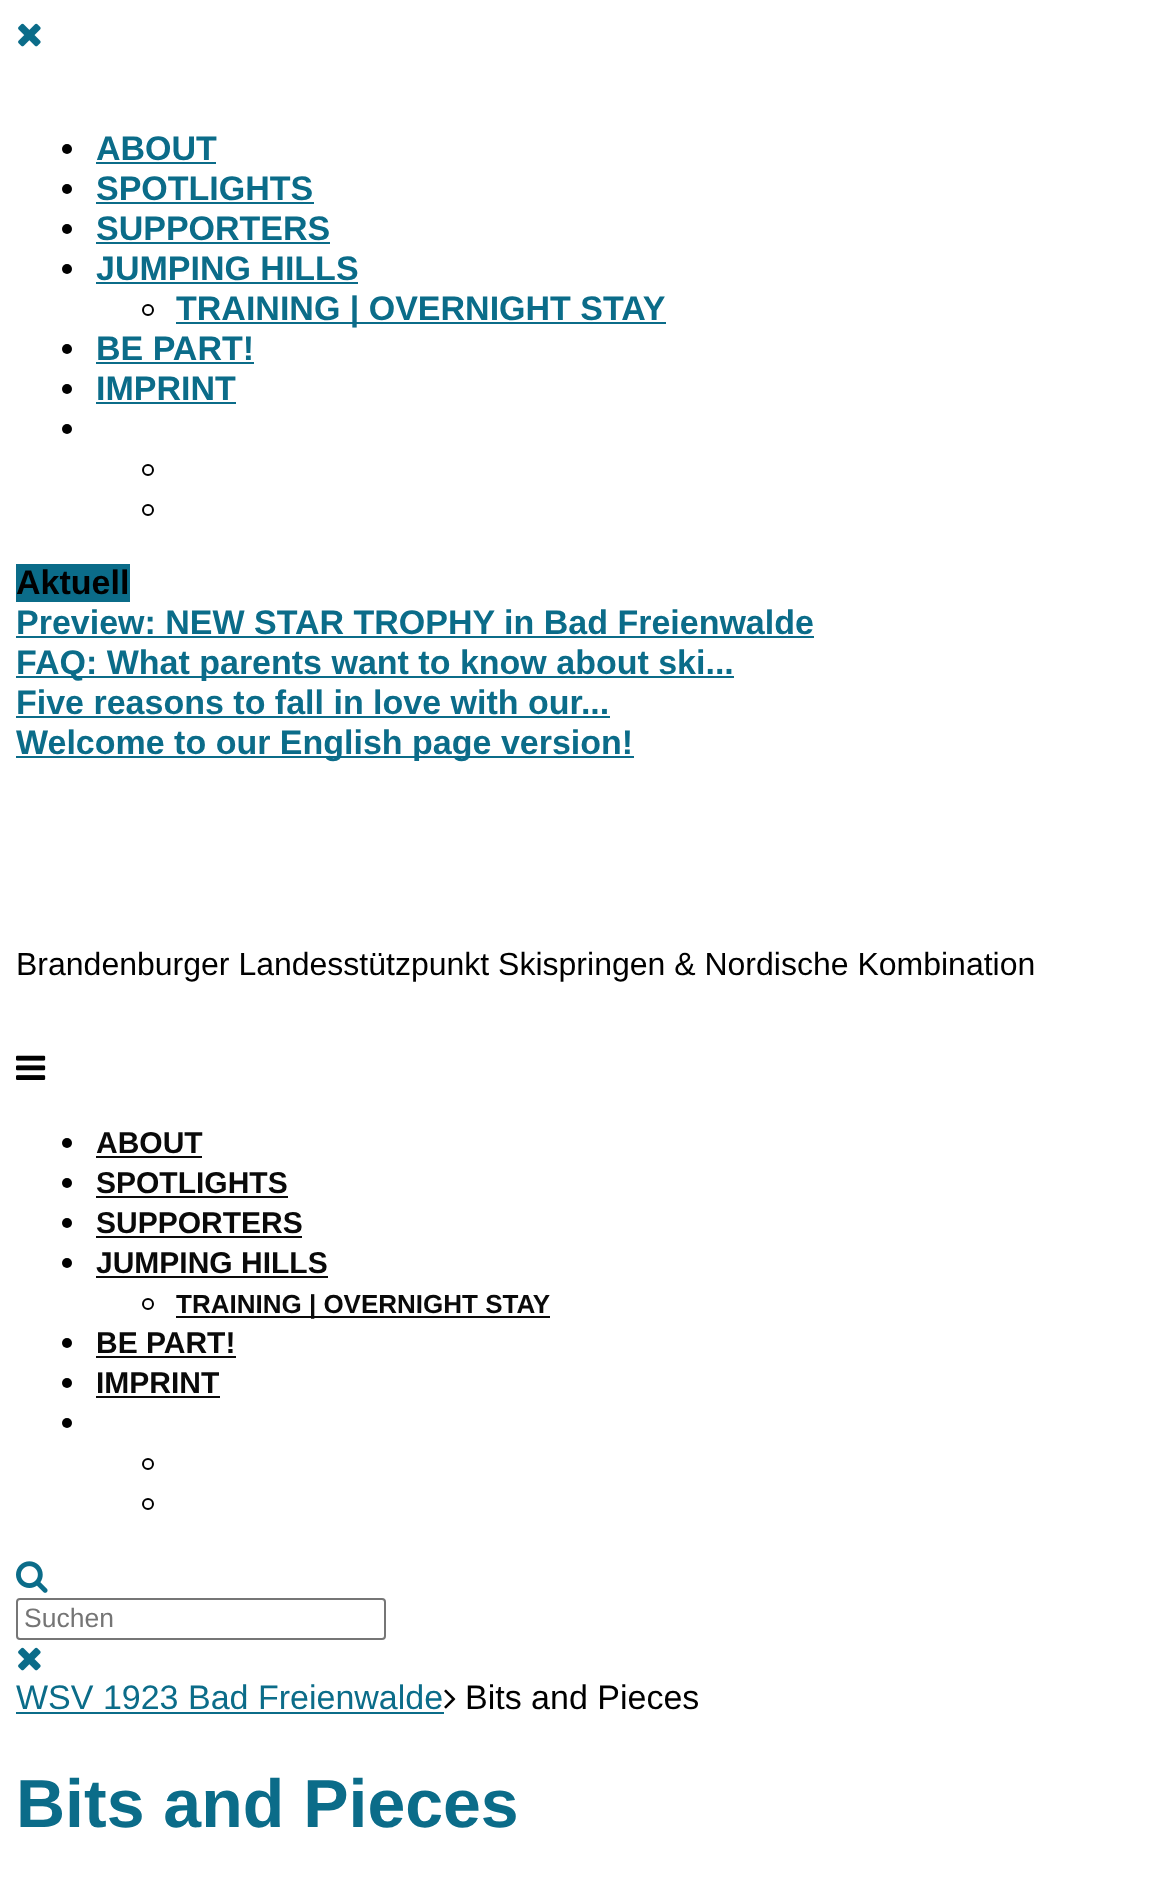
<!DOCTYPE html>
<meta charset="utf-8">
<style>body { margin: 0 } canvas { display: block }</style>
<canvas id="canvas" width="1167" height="1889"></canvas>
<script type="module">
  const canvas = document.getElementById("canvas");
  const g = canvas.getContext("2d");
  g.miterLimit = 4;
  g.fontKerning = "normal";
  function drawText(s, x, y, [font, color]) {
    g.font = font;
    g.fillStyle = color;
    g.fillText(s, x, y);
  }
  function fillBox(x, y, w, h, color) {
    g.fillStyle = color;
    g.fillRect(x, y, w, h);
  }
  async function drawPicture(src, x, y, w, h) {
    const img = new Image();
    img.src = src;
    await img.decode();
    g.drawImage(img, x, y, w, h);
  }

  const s1 = ["bold 34px Liberation Sans", "#0B6C89"];
  const s2 = ["bold 34px Liberation Sans", "#000000"];
  const s3 = ["32px Liberation Sans", "#000000"];
  const s4 = ["bold 30px Liberation Sans", "#0A0A0A"];
  const s5 = ["bold 26px Liberation Sans", "#0A0A0A"];
  const s6 = ["26.5px Liberation Sans", "#757575"];
  const s7 = ["34px Liberation Sans", "#0B6C89"];
  const s8 = ["34px Liberation Sans", "#000000"];
  const s9 = ["bold 68px Liberation Sans", "#0B6C89"];

  fillBox(0, 0, 1167, 1889, "#FFFFFF");
  await drawPicture("pic1.png", 18, 23, 23, 24);
  g.fillStyle = "#000000";
  g.beginPath();
  g.arc(67, 149, 5, 0, Math.PI * 2);
  g.fill();
  drawText("ABOUT", 96, 160, s1);
  fillBox(96, 162, 120, 2, "#0B6C89");
  g.fillStyle = "#000000";
  g.beginPath();
  g.arc(67, 189, 5, 0, Math.PI * 2);
  g.fill();
  drawText("SPOTLIGHTS", 96, 200, s1);
  fillBox(96, 202, 218, 2, "#0B6C89");
  g.fillStyle = "#000000";
  g.beginPath();
  g.arc(67, 229, 5, 0, Math.PI * 2);
  g.fill();
  drawText("SUPPORTERS", 96, 240, s1);
  fillBox(96, 242, 234, 2, "#0B6C89");
  g.fillStyle = "#000000";
  g.beginPath();
  g.arc(67, 269, 5, 0, Math.PI * 2);
  g.fill();
  drawText("JUMPING HILLS", 96, 280, s1);
  fillBox(96, 282, 262, 2, "#0B6C89");
  g.beginPath();
  g.arc(148, 310, 5, 0, Math.PI * 2);
  g.strokeStyle = "#000000";
  g.lineWidth = 2;
  g.stroke();
  fillBox(176, 322, 490, 2, "#0B6C89");
  drawText("TRAINING | OVERNIGHT STAY", 176, 320, s1);
  g.fillStyle = "#000000";
  g.beginPath();
  g.arc(67, 349, 5, 0, Math.PI * 2);
  g.fill();
  drawText("BE PART!", 96, 360, s1);
  fillBox(96, 362, 158, 2, "#0B6C89");
  g.fillStyle = "#000000";
  g.beginPath();
  g.arc(67, 389, 5, 0, Math.PI * 2);
  g.fill();
  drawText("IMPRINT", 96, 400, s1);
  fillBox(96, 402, 140, 2, "#0B6C89");
  g.fillStyle = "#000000";
  g.beginPath();
  g.arc(67, 429, 5, 0, Math.PI * 2);
  g.fill();
  g.beginPath();
  g.arc(148, 470, 5, 0, Math.PI * 2);
  g.stroke();
  g.beginPath();
  g.arc(148, 510, 5, 0, Math.PI * 2);
  g.stroke();
  fillBox(16, 564, 114, 38, "#0B6C89");
  drawText("Aktuell", 16, 594, s2);
  drawText("Preview: NEW STAR TROPHY in Bad Freienwalde", 16, 634, s1);
  fillBox(16, 636, 798, 2, "#0B6C89");
  fillBox(16, 676, 718, 2, "#0B6C89");
  drawText("FAQ: What parents want to know about ski...", 16, 674, s1);
  drawText("Five reasons to fall in love with our...", 16, 714, s1);
  fillBox(16, 716, 594, 2, "#0B6C89");
  fillBox(16, 756, 618, 2, "#0B6C89");
  drawText("Welcome to our English page version!", 16, 754, s1);
  drawText("Brandenburger Landesstützpunkt Skispringen & Nordische Kombination", 16, 975, s3);
  await drawPicture("pic2.png", 16, 1055, 30, 25);
  g.beginPath();
  g.arc(67, 1143, 5, 0, Math.PI * 2);
  g.fill();
  drawText("ABOUT", 96, 1153, s4);
  fillBox(96, 1156, 106, 2, "#0A0A0A");
  g.fillStyle = "#000000";
  g.beginPath();
  g.arc(67, 1183, 5, 0, Math.PI * 2);
  g.fill();
  drawText("SPOTLIGHTS", 96, 1193, s4);
  fillBox(96, 1196, 192, 2, "#0A0A0A");
  g.fillStyle = "#000000";
  g.beginPath();
  g.arc(67, 1223, 5, 0, Math.PI * 2);
  g.fill();
  drawText("SUPPORTERS", 96, 1233, s4);
  fillBox(96, 1236, 206, 2, "#0A0A0A");
  g.fillStyle = "#000000";
  g.beginPath();
  g.arc(67, 1263, 5, 0, Math.PI * 2);
  g.fill();
  drawText("JUMPING HILLS", 96, 1273, s4);
  fillBox(96, 1276, 232, 2, "#0A0A0A");
  g.beginPath();
  g.arc(148, 1304, 5, 0, Math.PI * 2);
  g.stroke();
  fillBox(176, 1316, 374, 2, "#0A0A0A");
  drawText("TRAINING | OVERNIGHT STAY", 176, 1313, s5);
  g.fillStyle = "#000000";
  g.beginPath();
  g.arc(67, 1343, 5, 0, Math.PI * 2);
  g.fill();
  drawText("BE PART!", 96, 1353, s4);
  fillBox(96, 1356, 140, 2, "#0A0A0A");
  g.fillStyle = "#000000";
  g.beginPath();
  g.arc(67, 1383, 5, 0, Math.PI * 2);
  g.fill();
  drawText("IMPRINT", 96, 1393, s4);
  fillBox(96, 1396, 124, 2, "#0A0A0A");
  g.fillStyle = "#000000";
  g.beginPath();
  g.arc(67, 1423, 5, 0, Math.PI * 2);
  g.fill();
  g.beginPath();
  g.arc(148, 1464, 5, 0, Math.PI * 2);
  g.stroke();
  g.beginPath();
  g.arc(148, 1504, 5, 0, Math.PI * 2);
  g.stroke();
  await drawPicture("pic3.png", 16, 1561, 32, 32);
  g.beginPath();
  g.roundRect(17, 1599, 368, 40, 3);
  g.strokeStyle = "#767676";
  g.stroke();
  drawText("Suchen", 24, 1627, s6);
  await drawPicture("pic1.png", 18, 1647, 23, 24);
  drawText("WSV 1923 Bad Freienwalde", 16, 1709, s7);
  fillBox(16, 1712, 428, 2, "#0B6C89");
  await drawPicture("pic4.png", 444, 1689, 12, 20);
  drawText("Bits and Pieces", 465, 1709, s8);
  drawText("Bits and Pieces", 16, 1827, s9);
</script>
